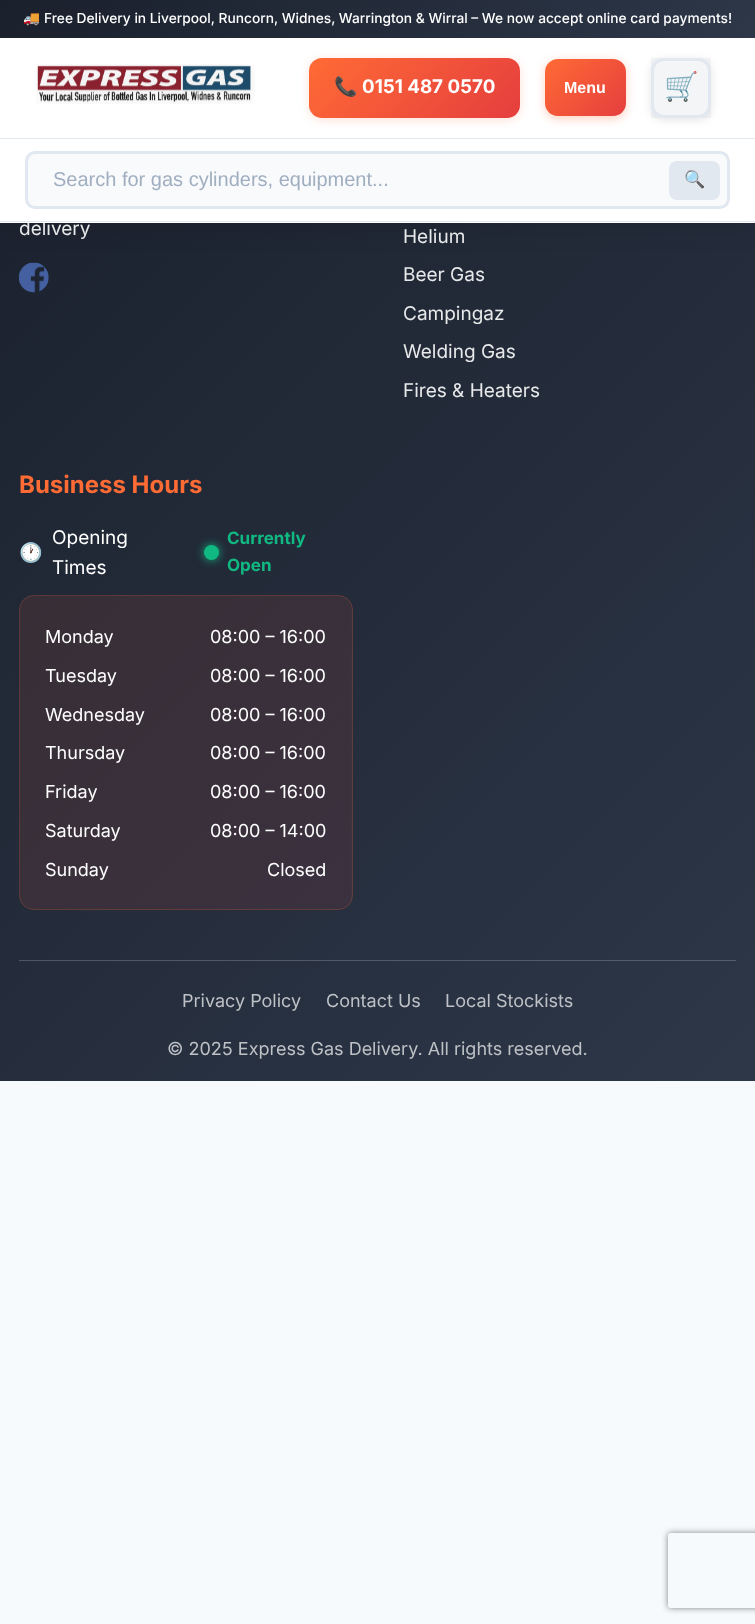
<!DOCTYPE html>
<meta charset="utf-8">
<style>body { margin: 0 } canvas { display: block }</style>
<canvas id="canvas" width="755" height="1624"></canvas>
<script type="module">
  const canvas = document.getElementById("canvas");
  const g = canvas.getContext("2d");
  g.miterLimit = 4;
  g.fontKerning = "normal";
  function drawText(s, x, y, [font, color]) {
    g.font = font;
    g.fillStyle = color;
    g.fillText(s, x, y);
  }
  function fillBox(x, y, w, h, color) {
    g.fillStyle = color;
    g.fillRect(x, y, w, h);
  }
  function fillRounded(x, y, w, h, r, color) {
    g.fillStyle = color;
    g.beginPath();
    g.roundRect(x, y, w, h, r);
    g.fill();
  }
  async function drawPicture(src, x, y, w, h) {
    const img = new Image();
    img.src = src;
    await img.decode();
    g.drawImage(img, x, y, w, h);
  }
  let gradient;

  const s1 = ["19px Inter", "#E8E9EA"];
  const s2 = ["13.75px Noto Color Emoji", "#FFFFFF"];
  const s3 = ["500 13.75px Inter", "#FFFFFF"];
  const s4 = ["bold 18.75px Noto Color Emoji", "#FFFFFF"];
  const s5 = ["bold 18.75px Inter", "#FFFFFF"];
  const s6 = ["bold 16px Liberation Sans", "#FFFFFF"];
  const s7 = ["28px Noto Color Emoji", "#2D3748"];
  const s8 = ["20px Liberation Sans", "#A0AEC0"];
  const s9 = ["17px Noto Color Emoji", "#000000"];
  const s10 = ["bold 24px Inter", "#FF6B35"];
  const s11 = ["19px Noto Color Emoji", "#FF6B35"];
  const s12 = ["19px Inter", "#FFFFFF"];
  const s13 = ["bold 17px Inter", "#10B981"];
  const s14 = ["18px Inter", "#FFFFFF"];
  const s15 = ["18px Inter", "#BEC1C5"];

  fillBox(0, 0, 755, 1624, "#F7FAFC");
  gradient = g.createLinearGradient(-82, 82, 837, 1000);
  gradient.addColorStop(0, "#1A202C");
  gradient.addColorStop(1, "#2D3748");
  g.fillStyle = gradient;
  g.fillRect(0, 223, 755, 858);
  await drawPicture("pic2.png", 18, 262, 31, 31);
  g.fillStyle = "rgba(0, 0, 0, 0.1)";
  g.filter = "blur(12.5px)";
  g.beginPath();
  g.rect(0, 5, 755, 223);
  g.fill();
  g.filter = "none";
  drawText("delivery", 19, 235, s1);
  fillBox(0, 38, 755, 185, "#FFFFFF");
  gradient = g.createLinearGradient(179, -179, 576, 217);
  gradient.addColorStop(0, "#1A202C");
  gradient.addColorStop(1, "#2D3748");
  g.fillStyle = gradient;
  g.fillRect(0, 0, 755, 38);
  drawText("🚚", 23, 23, s2);
  drawText("Free Delivery in Liverpool, Runcorn, Widnes, Warrington & Wirral – We now accept online card payments!", 44, 23, s3);
  fillBox(0, 138, 755, 1, "#E2E8F0");
  await drawPicture("pic1.png", 36, 64, 219, 40);
  g.fillStyle = "rgba(255, 107, 53, 0.2)";
  g.filter = "blur(5px)";
  g.beginPath();
  g.roundRect(309, 60, 211, 60, 13);
  g.fill();
  g.filter = "none";
  gradient = g.createLinearGradient(347, 20, 482, 155);
  gradient.addColorStop(0, "#FF6B35");
  gradient.addColorStop(1, "#E53E3E");
  g.fillStyle = gradient;
  g.beginPath();
  g.roundRect(309, 58, 211, 60, 13);
  g.fill();
  drawText("📞", 334, 93, s4);
  drawText("0151 487 0570", 362, 93, s5);
  g.fillStyle = "rgba(255, 107, 53, 0.3)";
  g.filter = "blur(5px)";
  g.beginPath();
  g.roundRect(545, 61, 81, 58, 13);
  g.fill();
  g.filter = "none";
  gradient = g.createLinearGradient(551, 53, 620, 122);
  gradient.addColorStop(0, "#FF6B35");
  gradient.addColorStop(1, "#E53E3E");
  g.fillStyle = gradient;
  g.beginPath();
  g.roundRect(545, 59, 81, 57, 13);
  g.fill();
  drawText("Menu", 564, 93, s6);
  g.save();
  g.beginPath();
  g.moveTo(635, 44);
  g.lineTo(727, 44);
  g.lineTo(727, 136);
  g.lineTo(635, 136);
  g.closePath();
  g.moveTo(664, 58);
  g.lineTo(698, 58);
  g.bezierCurveTo(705, 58, 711, 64, 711, 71);
  g.lineTo(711, 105);
  g.bezierCurveTo(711, 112, 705, 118, 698, 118);
  g.lineTo(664, 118);
  g.bezierCurveTo(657, 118, 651, 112, 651, 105);
  g.lineTo(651, 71);
  g.bezierCurveTo(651, 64, 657, 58, 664, 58);
  g.closePath();
  g.clip("evenodd");
  g.fillStyle = "rgba(0, 0, 0, 0.1)";
  g.filter = "blur(5px)";
  g.beginPath();
  g.roundRect(651, 60, 60, 60, 13);
  g.fill();
  g.filter = "none";
  g.restore();
  fillBox(651, 58, 60, 60, "rgba(45, 55, 72, 0.05)");
  g.beginPath();
  g.roundRect(652.5, 59.5, 57, 57, 11.5);
  g.strokeStyle = "#E2E8F0";
  g.lineWidth = 3;
  g.stroke();
  drawText("🛒", 664, 96, s7);
  fillBox(0, 221, 755, 1, "#E2E8F0");
  g.fillStyle = "#F8FAFC";
  g.beginPath();
  g.roundRect(26.5, 152.5, 702, 55, 8.5);
  g.fill();
  g.stroke();
  drawText("Search for gas cylinders, equipment...", 53, 186, s8);
  fillRounded(669, 161, 51, 39, 8, "#E2E8F0");
  drawText("🔍", 684, 185, s9);
  gradient = g.createLinearGradient(-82, 82, 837, 1000);
  gradient.addColorStop(0, "#484D56");
  gradient.addColorStop(1, "#575F6D");
  g.fillStyle = gradient;
  g.fillRect(19, 960, 717, 1);
  drawText("Helium", 403, 243, s1);
  drawText("Beer Gas", 403, 281, s1);
  drawText("Campingaz", 403, 320, s1);
  drawText("Welding Gas", 403, 358, s1);
  drawText("Fires & Heaters", 403, 397, s1);
  drawText("Business Hours", 19, 493, s10);
  drawText("🕐", 19, 559, s11);
  drawText("Opening", 52, 544, s12);
  drawText("Times", 52, 574, s12);
  g.fillStyle = "#10B981";
  g.filter = "blur(5px)";
  g.beginPath();
  g.roundRect(204, 545, 15, 15, 7.5);
  g.fill();
  g.filter = "none";
  g.beginPath();
  g.arc(211.5, 552.5, 7.5, 0, Math.PI * 2);
  g.fill();
  drawText("Currently", 227, 544, s13);
  drawText("Open", 227, 571, s13);
  g.save();
  g.beginPath();
  g.roundRect(19, 595, 334, 315, 15);
  g.clip();
  gradient = g.createLinearGradient(25, 279, 347, 601);
  gradient.addColorStop(0, "rgba(255, 107, 53, 0.1)");
  gradient.addColorStop(1, "rgba(229, 62, 62, 0.1)");
  g.fillStyle = gradient;
  g.fillRect(29, 595, 322, 1);
  gradient = g.createLinearGradient(-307, 592, 15, 913);
  gradient.addColorStop(0, "rgba(255, 107, 53, 0.1)");
  gradient.addColorStop(1, "rgba(229, 62, 62, 0.1)");
  g.fillStyle = gradient;
  g.fillRect(19, 605, 1, 295);
  gradient = g.createLinearGradient(25, 592, 347, 913);
  gradient.addColorStop(0, "rgba(255, 107, 53, 0.1)");
  gradient.addColorStop(1, "rgba(229, 62, 62, 0.1)");
  g.fillStyle = gradient;
  g.fillRect(20, 596, 331, 313);
  gradient = g.createLinearGradient(356, 592, 678, 913);
  gradient.addColorStop(0, "rgba(255, 107, 53, 0.1)");
  gradient.addColorStop(1, "rgba(229, 62, 62, 0.1)");
  g.fillStyle = gradient;
  g.fillRect(351, 596, 2, 313);
  gradient = g.createLinearGradient(25, 904, 347, 1226);
  gradient.addColorStop(0, "rgba(255, 107, 53, 0.1)");
  gradient.addColorStop(1, "rgba(229, 62, 62, 0.1)");
  g.fillStyle = gradient;
  g.fillRect(29, 909, 322, 1);
  g.restore();
  g.beginPath();
  g.roundRect(19.5, 595.5, 333, 314, 14.5);
  g.strokeStyle = "rgba(255, 107, 53, 0.2)";
  g.lineWidth = 1;
  g.stroke();
  drawText("Monday", 45, 643, s14);
  drawText("08:00 – 16:00", 210, 643, s14);
  drawText("Tuesday", 45, 682, s14);
  drawText("08:00 – 16:00", 210, 682, s14);
  drawText("Wednesday", 45, 721, s14);
  drawText("08:00 – 16:00", 210, 721, s14);
  drawText("Thursday", 45, 759, s14);
  drawText("08:00 – 16:00", 210, 759, s14);
  drawText("Friday", 45, 798, s14);
  drawText("08:00 – 16:00", 210, 798, s14);
  drawText("Saturday", 45, 837, s14);
  drawText("08:00 – 14:00", 210, 837, s14);
  drawText("Sunday", 45, 876, s14);
  drawText("Closed", 267, 876, s14);
  drawText("Privacy Policy", 182, 1007, s15);
  drawText("Contact Us", 326, 1007, s15);
  drawText("Local Stockists", 445, 1007, s15);
  drawText("© 2025 Express Gas Delivery. All rights reserved.", 167, 1055, s15);
  g.save();
  g.beginPath();
  g.moveTo(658, 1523);
  g.lineTo(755, 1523);
  g.lineTo(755, 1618);
  g.lineTo(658, 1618);
  g.closePath();
  g.moveTo(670.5, 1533);
  g.lineTo(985.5, 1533);
  g.bezierCurveTo(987, 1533, 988, 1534, 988, 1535.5);
  g.lineTo(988, 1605.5);
  g.bezierCurveTo(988, 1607, 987, 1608, 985.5, 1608);
  g.lineTo(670.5, 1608);
  g.bezierCurveTo(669, 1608, 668, 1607, 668, 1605.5);
  g.lineTo(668, 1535.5);
  g.bezierCurveTo(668, 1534, 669, 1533, 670.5, 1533);
  g.closePath();
  g.clip("evenodd");
  g.fillStyle = "#808080";
  g.filter = "blur(3px)";
  g.beginPath();
  g.roundRect(668, 1533, 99, 75, 2.5);
  g.fill();
  g.filter = "none";
  g.restore();
</script>
